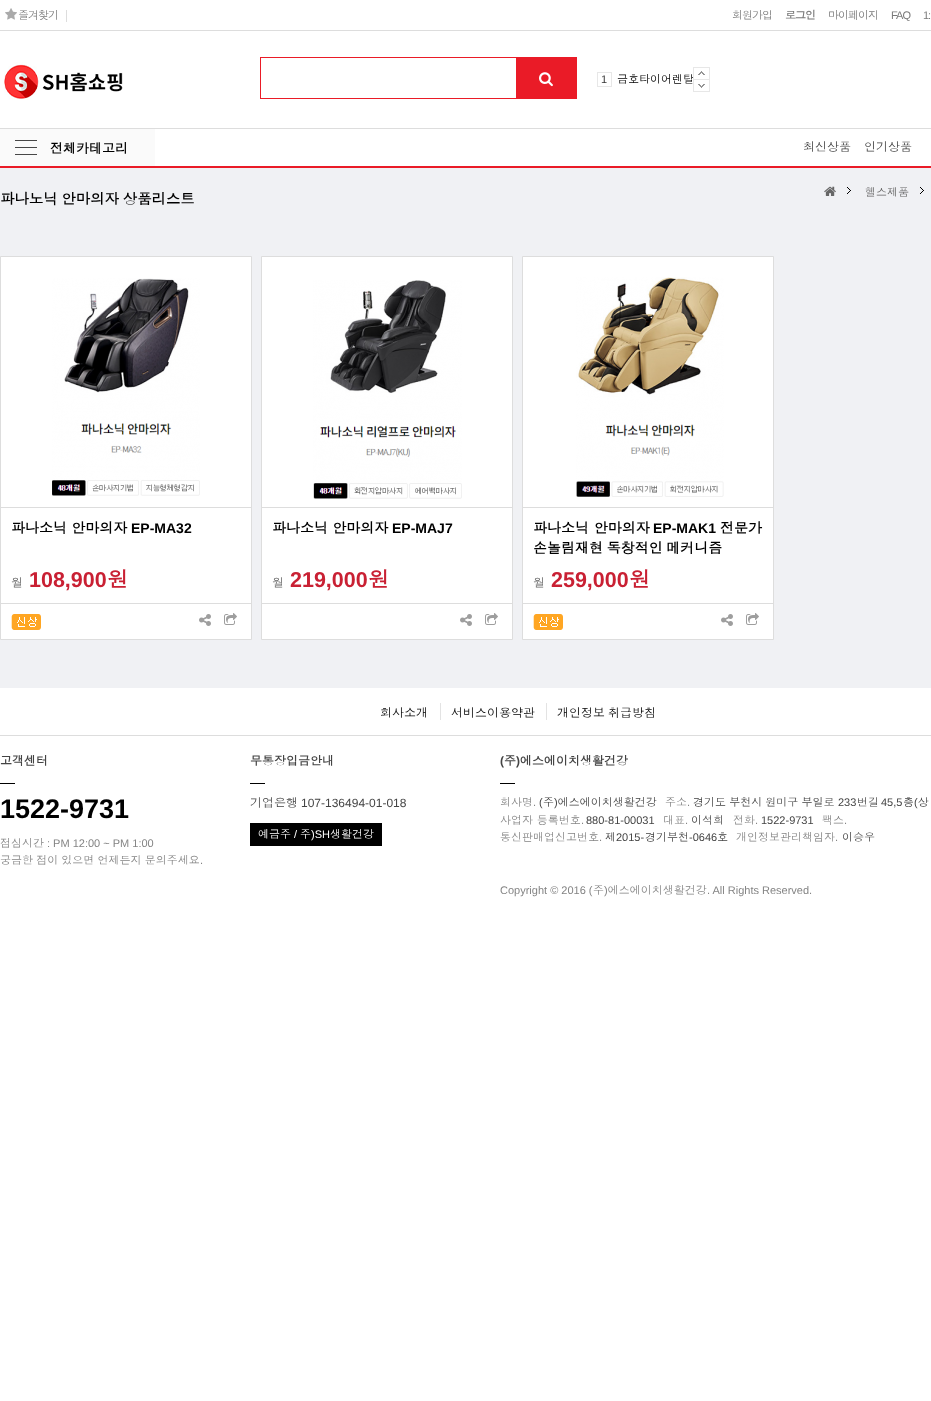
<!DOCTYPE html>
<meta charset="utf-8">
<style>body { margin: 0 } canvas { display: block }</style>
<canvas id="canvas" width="931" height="1401"></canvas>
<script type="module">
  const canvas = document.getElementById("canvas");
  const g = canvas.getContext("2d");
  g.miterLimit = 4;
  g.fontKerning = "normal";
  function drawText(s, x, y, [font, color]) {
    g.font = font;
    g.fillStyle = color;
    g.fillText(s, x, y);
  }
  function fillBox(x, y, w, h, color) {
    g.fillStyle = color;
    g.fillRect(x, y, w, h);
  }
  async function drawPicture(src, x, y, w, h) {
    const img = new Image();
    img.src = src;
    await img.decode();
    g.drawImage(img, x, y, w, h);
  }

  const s1 = ["11px Dotum", "#797979"];
  const s2 = ["bold 11px Dotum", "#797979"];
  const s3 = ["11px Liberation Sans", "#797979"];
  const s4 = ["11px Liberation Sans", "#333333"];
  const s5 = ["11px Dotum", "#000000"];
  const s6 = ["bold 13px Dotum", "#000000"];
  const s7 = ["12px Dotum", "#3E3E3E"];
  const s8 = ["11px Dotum", "#666666"];
  const s9 = ["bold 14px Dotum", "#000000"];
  const s10 = ["bold 14px Liberation Sans", "#000000"];
  const s11 = ["12px Dotum", "#666666"];
  const s12 = ["bold 21.5px Liberation Sans", "#C92033"];
  const s13 = ["bold 21.5px Dotum", "#C92033"];
  const s14 = ["bold 14.4px Dotum", "#000000"];
  const s15 = ["12px Dotum", "#000000"];
  const s16 = ["bold 12px Dotum", "#444444"];
  const s17 = ["bold 27px Liberation Sans", "#000000"];
  const s18 = ["11px Dotum", "#848484"];
  const s19 = ["11px Liberation Sans", "#848484"];
  const s20 = ["12px Dotum", "#444444"];
  const s21 = ["12px Liberation Sans", "#444444"];
  const s22 = ["11px Dotum", "#FFFFFF"];
  const s23 = ["11px Liberation Sans", "#FFFFFF"];
  const s24 = ["bold 12px Liberation Sans", "#444444"];
  const s25 = ["11px Liberation Sans", "#444444"];
  const s26 = ["11px Dotum", "#444444"];

  fillBox(0, 0, 931, 1401, "#FFFFFF");
  fillBox(0, 166, 931, 2, "#EA1B27");
  fillBox(0, 30, 931, 1, "#DDDDDD");
  await drawPicture("pic1.png", 5, 8, 12, 12);
  g.letterSpacing = "-1px";
  drawText("즐겨찾기", 18, 19, s1);
  fillBox(66, 10, 1, 12, "#DDDDDD");
  drawText("회원가입", 732, 19, s1);
  drawText("로그인", 785, 19, s2);
  drawText("마이페이지", 828, 19, s1);
  drawText("FAQ", 891, 19, s3);
  drawText("1:", 923, 19, s3);
  await drawPicture("pic2.png", 4, 62, 119, 38);
  g.strokeStyle = "#EA1B27";
  g.strokeRect(260.5, 57.5, 316, 41);
  fillBox(516, 58, 60, 40, "#EA1B27");
  await drawPicture("pic3.png", 539, 72, 14, 15);
  g.strokeStyle = "#E7E7E7";
  g.strokeRect(597.5, 72.5, 14, 14);
  g.letterSpacing = "0px";
  drawText("1", 601, 83, s4);
  drawText("금호타이어렌탈", 617, 83, s5);
  await drawPicture("pic4.png", 693, 67, 17, 12);
  await drawPicture("pic5.png", 693, 79, 17, 13);
  fillBox(0, 128, 931, 1, "#DDDDDD");
  fillBox(0, 129, 155, 37, "#FAFAFA");
  await drawPicture("pic6.png", 15, 140, 22, 15);
  drawText("전체카테고리", 50, 153, s6);
  drawText("최신상품", 803, 151, s7);
  drawText("인기상품", 864, 151, s7);
  fillBox(0, 168, 931, 520, "#F0F1F4");
  await drawPicture("pic7.png", 847, 187, 4, 7);
  await drawPicture("pic8.png", 824, 186, 12, 10);
  await drawPicture("pic7.png", 920, 187, 4, 7);
  drawText("헬스제품", 865, 196, s8);
  g.fillStyle = "#FFFFFF";
  g.beginPath();
  g.rect(0.5, 256.5, 251, 383);
  g.fill();
  g.strokeStyle = "#DDDDDD";
  g.stroke();
  fillBox(1, 507, 250, 1, "#DDDDDD");
  await drawPicture("pic9.png", 52, 278, 148, 218);
  g.wordSpacing = "-0.5px";
  drawText("파나소닉 안마의자", 11, 533, s9);
  g.wordSpacing = "0px";
  drawText("EP-MA32", 131, 533, s10);
  drawText("월", 11, 587, s11);
  drawText("108,900", 29, 587, s12);
  drawText("원", 107, 587, s13);
  fillBox(1, 603, 250, 1, "#DDDDDD");
  await drawPicture("pic10.png", 11, 614, 30, 16);
  await drawPicture("pic11.png", 199, 614, 12, 12);
  await drawPicture("pic12.png", 224, 613, 13, 12);
  g.fillStyle = "#FFFFFF";
  g.beginPath();
  g.rect(261.5, 256.5, 251, 383);
  g.fill();
  g.stroke();
  fillBox(262, 507, 250, 1, "#DDDDDD");
  await drawPicture("pic13.png", 313, 280, 149, 219);
  g.wordSpacing = "-0.5px";
  drawText("파나소닉 안마의자", 272, 533, s9);
  g.wordSpacing = "0px";
  drawText("EP-MAJ7", 392, 533, s10);
  drawText("월", 272, 587, s11);
  drawText("219,000", 290, 587, s12);
  drawText("원", 368, 587, s13);
  fillBox(262, 603, 250, 1, "#DDDDDD");
  await drawPicture("pic11.png", 460, 614, 12, 12);
  await drawPicture("pic12.png", 485, 613, 13, 12);
  g.fillStyle = "#FFFFFF";
  g.beginPath();
  g.rect(522.5, 256.5, 251, 383);
  g.fill();
  g.stroke();
  fillBox(523, 507, 250, 1, "#DDDDDD");
  await drawPicture("pic14.png", 576, 277, 148, 220);
  drawText("파나소닉 안마의자", 533, 533, s9);
  drawText("EP-MAK1", 653, 533, s10);
  drawText("전문가", 720, 533, s9);
  g.wordSpacing = "-1px";
  drawText("손놀림재현 독창적인 메커니즘", 533, 553, s9);
  g.wordSpacing = "0px";
  drawText("월", 533, 587, s11);
  drawText("259,000", 551, 587, s12);
  drawText("원", 629, 587, s13);
  fillBox(523, 603, 250, 1, "#DDDDDD");
  await drawPicture("pic10.png", 533, 614, 30, 16);
  await drawPicture("pic11.png", 721, 614, 12, 12);
  await drawPicture("pic12.png", 746, 613, 13, 12);
  g.wordSpacing = "-1px";
  drawText("파나노닉 안마의자 상품리스트", 0, 204, s14);
  fillBox(0, 735, 931, 1, "#DDDDDD");
  g.wordSpacing = "0px";
  drawText("회사소개", 380, 717, s15);
  fillBox(440, 703, 1, 17, "#E3E3E3");
  drawText("서비스이용약관", 451, 717, s15);
  fillBox(546, 703, 1, 17, "#E3E3E3");
  g.wordSpacing = "-1px";
  drawText("개인정보 취급방침", 557, 717, s15);
  g.wordSpacing = "0px";
  drawText("고객센터", 0, 765, s16);
  fillBox(0, 783, 15, 1, "#000000");
  drawText("1522-9731", 0, 818, s17);
  drawText("점심시간", 0, 847, s18);
  drawText(": PM 12:00 ~ PM 1:00", 47, 847, s19);
  g.wordSpacing = "-0.5px";
  drawText("궁금한 점이 있으면 언제든지 문의주세요", 0, 864, s18);
  g.wordSpacing = "0px";
  drawText(".", 200, 864, s19);
  drawText("무통장입금안내", 250, 765, s16);
  fillBox(250, 783, 15, 1, "#000000");
  drawText("기업은행", 250, 807, s20);
  drawText("107-136494-01-018", 301, 807, s21);
  fillBox(250, 823, 132, 23, "#000000");
  drawText("예금주", 258, 838, s22);
  drawText("/", 294, 838, s23);
  drawText("주", 300, 838, s22);
  drawText(")SH", 311, 838, s23);
  drawText("생활건강", 330, 838, s22);
  drawText("(", 500, 765, s24);
  drawText("주 에스에이치생활건강", 504, 765, s16);
  drawText(")", 516, 765, s24);
  fillBox(500, 783, 15, 1, "#000000");
  drawText("회사명", 500, 806, s18);
  drawText(".", 533, 806, s19);
  drawText("(", 539, 806, s25);
  drawText("주 에스에이치생활건강", 543, 806, s26);
  drawText(")", 554, 806, s25);
  drawText("주소", 665, 806, s18);
  drawText(".", 687, 806, s19);
  g.wordSpacing = "-0.5px";
  drawText("경기도 부천시 원미구 부일로", 693, 806, s26);
  g.wordSpacing = "0px";
  drawText("233", 838, 806, s25);
  drawText("번길", 857, 806, s26);
  drawText("45,5", 881, 806, s25);
  drawText("층 상", 903, 806, s26);
  drawText("(", 914, 806, s25);
  drawText("사업자 등록번호", 500, 824, s18);
  drawText(".", 581, 824, s19);
  drawText("880-81-00031", 586, 824, s25);
  drawText("대표", 663, 824, s18);
  drawText(".", 685, 824, s19);
  drawText("이석희", 691, 824, s26);
  drawText("전화", 733, 824, s18);
  drawText(".", 755, 824, s19);
  drawText("1522-9731", 761, 824, s25);
  drawText("팩스", 822, 824, s18);
  drawText(".", 844, 824, s19);
  drawText("통신판매업신고번호", 500, 841, s18);
  drawText(".", 599, 841, s19);
  drawText("제", 605, 841, s26);
  drawText("2015-", 616, 841, s25);
  drawText("경기부천", 645, 841, s26);
  drawText("-0646", 689, 841, s25);
  drawText("호", 717, 841, s26);
  drawText("개인정보관리책임자", 736, 841, s18);
  drawText(".", 835, 841, s19);
  drawText("이승우", 842, 841, s26);
  drawText("Copyright © 2016 (", 500, 894, s19);
  drawText("주 에스에이치생활건강", 593, 894, s18);
  drawText(")", 604, 894, s19);
  drawText(". All Rights Reserved.", 707, 894, s19);
</script>
